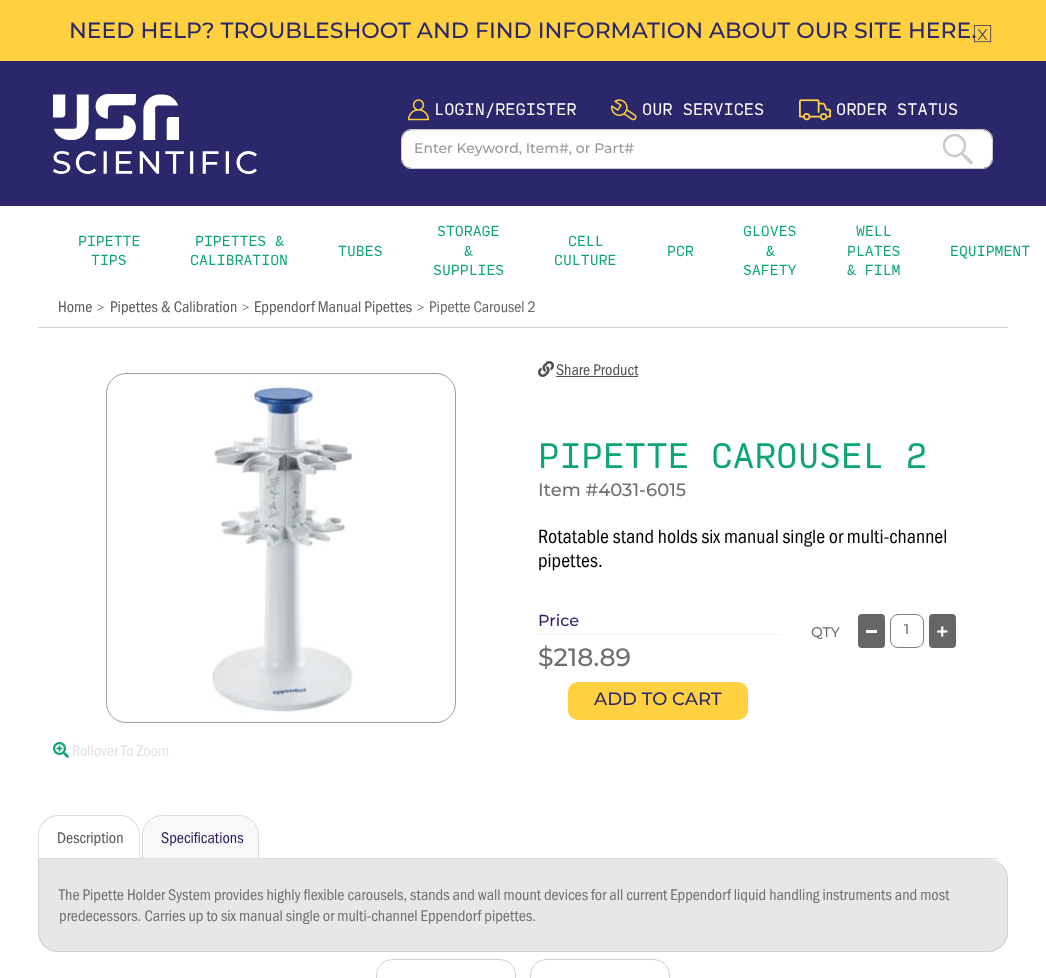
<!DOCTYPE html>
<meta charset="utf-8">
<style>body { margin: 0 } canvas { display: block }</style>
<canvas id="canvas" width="1046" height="978"></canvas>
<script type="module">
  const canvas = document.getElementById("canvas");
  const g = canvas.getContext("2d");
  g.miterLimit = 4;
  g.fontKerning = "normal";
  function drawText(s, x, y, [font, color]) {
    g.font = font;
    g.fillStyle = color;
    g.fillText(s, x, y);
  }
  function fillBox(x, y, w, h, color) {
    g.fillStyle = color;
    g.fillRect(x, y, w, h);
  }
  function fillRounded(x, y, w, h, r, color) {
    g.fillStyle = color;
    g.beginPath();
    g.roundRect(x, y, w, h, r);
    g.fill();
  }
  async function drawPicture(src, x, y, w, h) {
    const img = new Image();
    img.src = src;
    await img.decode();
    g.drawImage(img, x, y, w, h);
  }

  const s1 = ["500 22px Montserrat", "#2A276A"];
  const s2 = ["16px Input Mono", "#FFFFFF"];
  const s3 = ["500 14px Montserrat", "#999999"];
  const s4 = ["14px Input Mono", "#0CA573"];
  const s5 = ["16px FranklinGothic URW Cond", "#58595B"];
  const s6 = ["14px FranklinGothic URW Cond", "#6D6F70"];
  const s7 = ["16px FranklinGothic URW Cond", "#666666"];
  const s8 = ["16px FranklinGothic URW Cond", "#4F4F4F"];
  const s9 = ["34px Input Mono", "#0CA573"];
  const s10 = ["500 18px Montserrat", "#6D6F70"];
  const s11 = ["20px FranklinGothic URW Cond", "#000000"];
  const s12 = ["500 16px Montserrat", "#2A276A"];
  const s13 = ["500 25px Montserrat", "#6D6F70"];
  const s14 = ["500 14px Montserrat", "#6D6F70"];
  const s15 = ["500 18px Montserrat", "#2A276A"];
  const s16 = ["16px FranklinGothic URW Cond", "#E1E1E1"];
  const s17 = ["16px FranklinGothic URW Cond", "#555555"];
  const s18 = ["16px FranklinGothic URW Cond", "#22205F"];
  const s19 = ["16px FranklinGothic URW Cond", "#6D6F70"];

  fillBox(0, 0, 1046, 978, "#FFFFFF");
  fillBox(0, 0, 1046, 61, "#FFD141");
  drawText("NEED HELP? TROUBLESHOOT AND FIND INFORMATION ABOUT OUR SITE HERE.", 69, 38, s1);
  await drawPicture("pic1.png", 974, 25, 18, 18);
  fillBox(0, 61, 1046, 145, "#2A276A");
  await drawPicture("pic2.png", 53, 94, 204, 80);
  await drawPicture("pic3.png", 408, 99, 21, 22);
  drawText("LOGIN/REGISTER", 434, 115, s2);
  await drawPicture("pic4.png", 611, 99, 26, 22);
  drawText("OUR SERVICES", 642, 115, s2);
  await drawPicture("pic5.png", 799, 99, 32, 22);
  drawText("ORDER STATUS", 836, 115, s2);
  fillRounded(402, 130, 590, 38, 9, "#FFFFFF");
  g.fillStyle = "rgba(0, 0, 0, 0.07)";
  g.beginPath();
  g.moveTo(411, 131);
  g.lineTo(983, 131);
  g.bezierCurveTo(988, 131, 992, 135, 992, 140);
  g.lineTo(992, 139);
  g.bezierCurveTo(992, 134, 988, 130, 983, 130);
  g.lineTo(411, 130);
  g.bezierCurveTo(406, 130, 402, 134, 402, 139);
  g.lineTo(402, 140);
  g.bezierCurveTo(402, 135, 406, 131, 411, 131);
  g.closePath();
  g.fill();
  g.beginPath();
  g.roundRect(401.5, 129.5, 591, 39, 9.5);
  g.strokeStyle = "#CCCBCB";
  g.stroke();
  drawText("Enter Keyword, Item#, or Part#", 414, 153, s3);
  g.save();
  g.beginPath();
  g.rect(943, 134, 30, 30);
  g.clip();
  g.beginPath();
  g.arc(954.5, 145.5, 10.5, 0, Math.PI * 2);
  g.lineWidth = 2.4;
  g.stroke();
  g.restore();
  g.beginPath();
  g.moveTo(970.5, 162);
  g.lineTo(961.5, 153);
  g.lineWidth = 2.4;
  g.stroke();
  g.beginPath();
  g.moveTo(971, 162.5);
  g.lineTo(965, 156.5);
  g.lineWidth = 3.5;
  g.lineCap = "round";
  g.stroke();
  drawText("PIPETTE", 78, 246, s4);
  drawText("TIPS", 91, 265, s4);
  drawText("PIPETTES &", 195, 246, s4);
  drawText("CALIBRATION", 190, 265, s4);
  drawText("TUBES", 338, 256, s4);
  drawText("STORAGE", 437, 236, s4);
  drawText("&", 464, 256, s4);
  drawText("SUPPLIES", 433, 275, s4);
  drawText("CELL", 568, 246, s4);
  drawText("CULTURE", 554, 265, s4);
  drawText("PCR", 667, 256, s4);
  drawText("GLOVES", 743, 236, s4);
  drawText("&", 766, 256, s4);
  drawText("SAFETY", 743, 275, s4);
  drawText("WELL", 856, 236, s4);
  drawText("PLATES", 847, 256, s4);
  drawText("& FILM", 847, 275, s4);
  drawText("EQUIPMENT", 950, 256, s4);
  fillBox(38, 327, 970, 1, "#D0D2D3");
  drawText("Home", 58, 312, s5);
  drawText(">", 97, 312, s6);
  drawText("Pipettes & Calibration", 110, 312, s5);
  drawText(">", 242, 312, s6);
  drawText("Eppendorf Manual Pipettes", 254, 312, s5);
  drawText(">", 417, 312, s6);
  drawText("Pipette Carousel 2", 429, 312, s7);
  await drawPicture("pic6.png", 538, 361, 16, 16);
  drawText("Share Product", 556, 375, s8);
  fillBox(556, 376, 82, 1, "#4F4F4F");
  drawText("PIPETTE CAROUSEL 2", 538, 468, s9);
  drawText("Item #4031-6015", 538, 496, s10);
  drawText("Rotatable stand holds six manual single or multi-channel", 538, 543, s11);
  drawText("pipettes.", 538, 567, s11);
  fillBox(538, 634, 243, 1, "#F1F1F2");
  drawText("Price", 538, 626, s12);
  drawText("$218.89", 538, 666, s13);
  drawText("QTY", 811, 637, s14);
  fillRounded(858, 614, 27, 34, 4, "#666666");
  fillBox(866, 630, 11, 3, "#FFFFFF");
  g.beginPath();
  g.roundRect(890.5, 614.5, 33, 33, 7.5);
  g.strokeStyle = "#808083";
  g.lineWidth = 1;
  g.stroke();
  drawText("1", 904, 634, s14);
  fillRounded(929, 614, 27, 34, 4, "#666666");
  await drawPicture("pic7.png", 937, 626, 11, 11);
  fillRounded(568, 682, 180, 38, 10, "#FFD141");
  drawText("ADD TO CART", 594, 705, s15);
  g.beginPath();
  g.roundRect(106.5, 373.5, 349, 349, 19.5);
  g.strokeStyle = "#9E9E9E";
  g.stroke();
  await drawPicture("pic8.png", 212, 377, 141, 338);
  await drawPicture("pic9.png", 53, 742, 16, 16);
  drawText("Rollover To Zoom", 72, 756, s16);
  g.fillStyle = "#DDDDDD";
  g.beginPath();
  g.moveTo(58, 815);
  g.bezierCurveTo(52, 815, 48, 817, 44, 821);
  g.lineTo(45, 822);
  g.bezierCurveTo(48, 818, 53, 816, 58, 816);
  g.lineTo(120, 816);
  g.bezierCurveTo(125, 816, 130, 818, 133, 822);
  g.lineTo(134, 821);
  g.bezierCurveTo(130, 817, 126, 815, 120, 815);
  g.closePath();
  g.fill();
  g.beginPath();
  g.moveTo(140, 859);
  g.lineTo(140, 835);
  g.bezierCurveTo(140, 829.5, 138, 824.5, 134, 821);
  g.lineTo(133, 822);
  g.bezierCurveTo(137, 825, 139, 830, 139, 835);
  g.lineTo(139, 858);
  g.closePath();
  g.fill();
  g.beginPath();
  g.moveTo(38, 859);
  g.lineTo(39, 858);
  g.lineTo(39, 835);
  g.bezierCurveTo(39, 830, 41, 825, 45, 822);
  g.lineTo(44, 821);
  g.bezierCurveTo(40, 824.5, 38, 829.5, 38, 835);
  g.closePath();
  g.fill();
  drawText("Description", 57, 843, s17);
  g.fillStyle = "#F8F8F9";
  g.beginPath();
  g.roundRect(142.5, 815.5, 116, 43, [19.5, 19.5, 0, 0]);
  g.fill();
  g.strokeStyle = "#DDDDDD";
  g.stroke();
  drawText("Specifications", 161, 843, s18);
  fillBox(38, 858, 960, 1, "#DDDDDD");
  g.fillStyle = "#E6E7E8";
  g.beginPath();
  g.roundRect(38, 859, 970, 93, [0, 20, 20, 20]);
  g.fill();
  g.fillStyle = "#D0D2D3";
  g.beginPath();
  g.moveTo(38, 859);
  g.lineTo(988, 859);
  g.bezierCurveTo(999, 859, 1008, 868, 1008, 879);
  g.lineTo(1008, 932);
  g.bezierCurveTo(1008, 943, 999, 952, 988, 952);
  g.lineTo(58, 952);
  g.bezierCurveTo(47, 952, 38, 943, 38, 932);
  g.closePath();
  g.moveTo(39, 859);
  g.lineTo(988, 859);
  g.bezierCurveTo(998, 859, 1007, 868, 1007, 879);
  g.lineTo(1007, 932);
  g.bezierCurveTo(1007, 942, 998, 951, 988, 951);
  g.lineTo(58, 951);
  g.bezierCurveTo(48, 951, 39, 942, 39, 932);
  g.closePath();
  g.fill("evenodd");
  drawText("The Pipette Holder System provides highly flexible carousels, stands and wall mount devices for all current Eppendorf liquid handling instruments and most", 59, 900, s19);
  drawText("predecessors. Carries up to six manual single or multi-channel Eppendorf pipettes.", 59, 921, s19);
  g.beginPath();
  g.roundRect(376.5, 959.5, 139, 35, 15.5);
  g.strokeStyle = "#D0D2D3";
  g.stroke();
  g.beginPath();
  g.roundRect(530.5, 959.5, 139, 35, 15.5);
  g.stroke();
</script>
